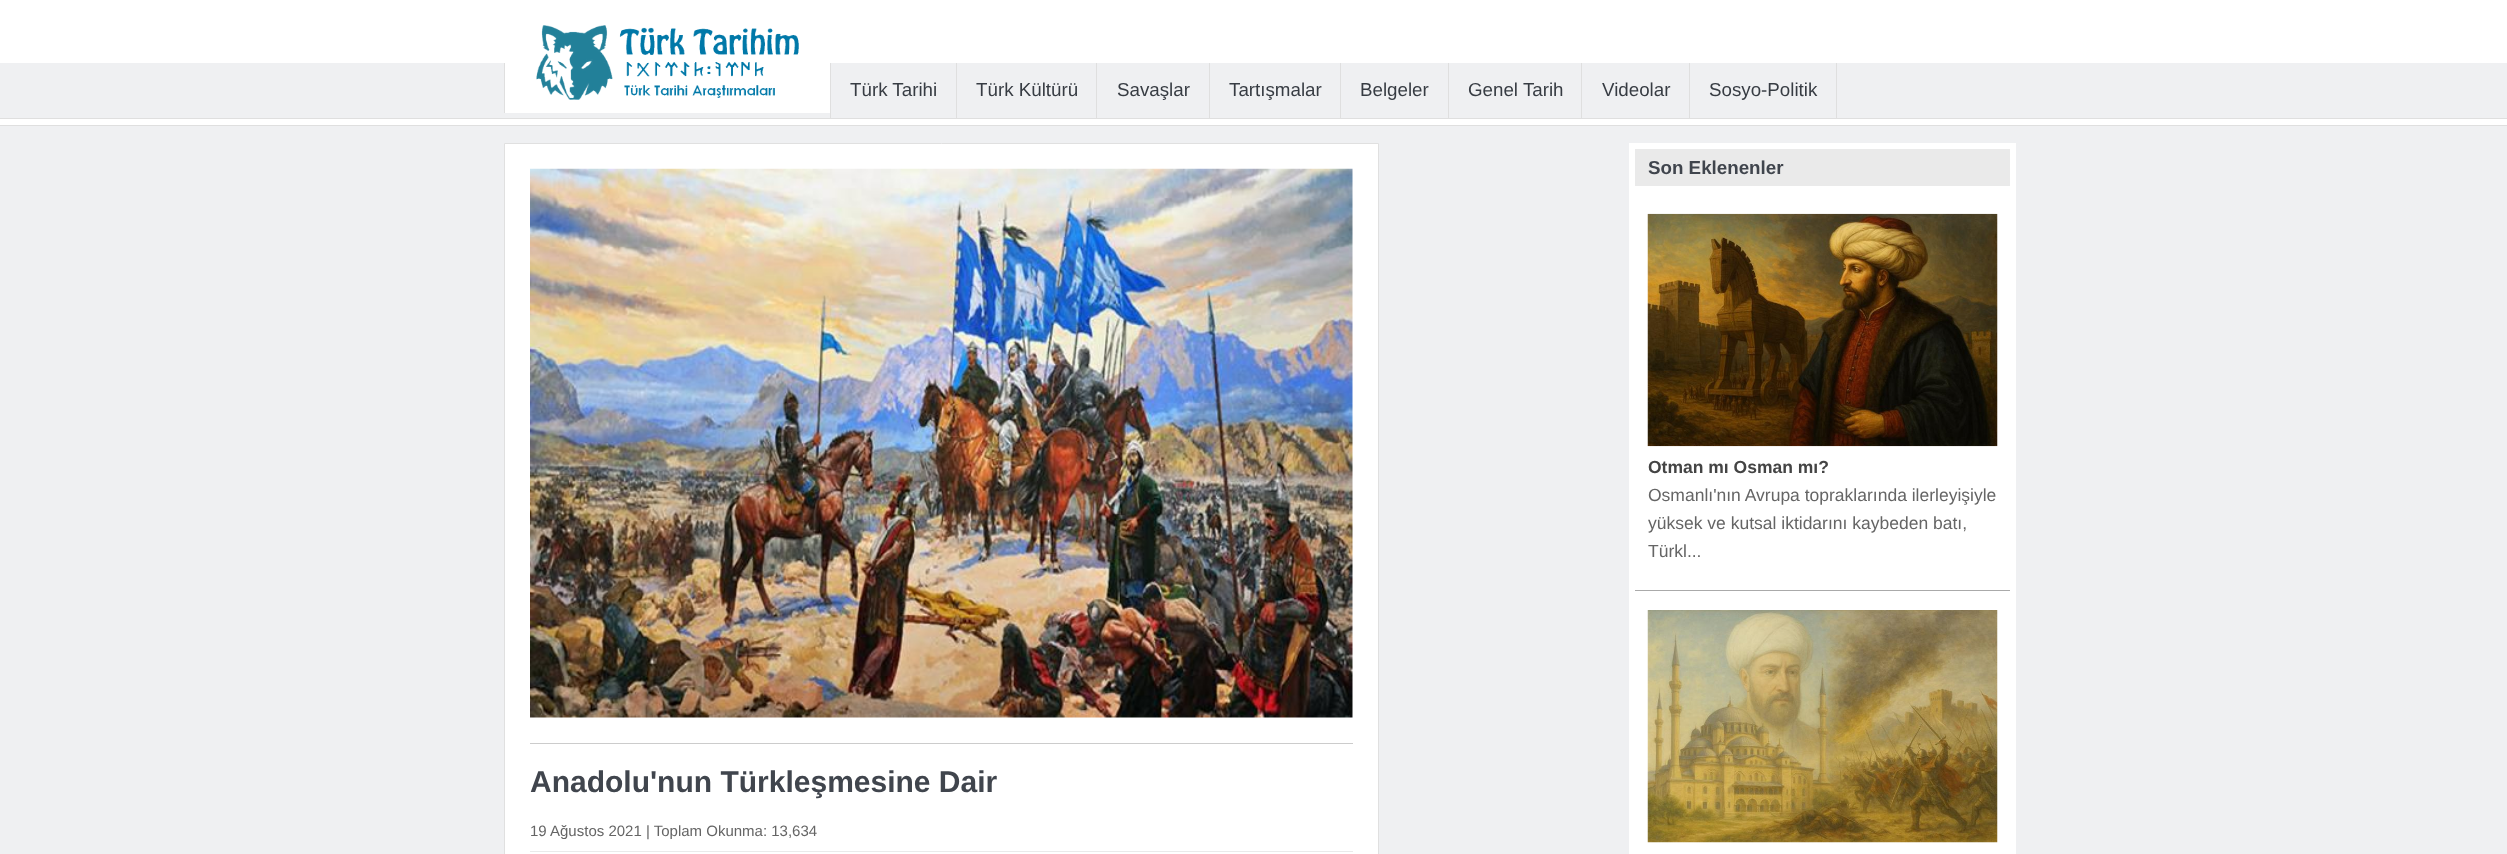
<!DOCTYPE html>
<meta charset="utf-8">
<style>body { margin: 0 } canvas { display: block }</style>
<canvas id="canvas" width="2507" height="854"></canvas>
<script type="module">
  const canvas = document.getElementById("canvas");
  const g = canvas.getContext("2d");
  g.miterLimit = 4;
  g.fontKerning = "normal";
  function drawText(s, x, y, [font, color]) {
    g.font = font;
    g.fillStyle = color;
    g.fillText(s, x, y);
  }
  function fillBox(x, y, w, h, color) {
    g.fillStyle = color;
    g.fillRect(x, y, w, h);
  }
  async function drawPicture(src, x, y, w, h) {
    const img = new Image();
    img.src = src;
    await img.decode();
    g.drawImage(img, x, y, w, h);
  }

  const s1 = ["18.75px Liberation Sans", "#373C43"];
  const s2 = ["bold 18.75px Liberation Sans", "#40454D"];
  const s3 = ["bold 17.5px Liberation Sans", "#444444"];
  const s4 = ["17.5px Liberation Sans", "#656565"];
  const s5 = ["bold 30px Liberation Sans", "#40454D"];
  const s6 = ["15px Liberation Sans", "#656565"];

  fillBox(0, 0, 2507, 854, "#EFF0F2");
  fillBox(0, 0, 2507, 63, "#FFFFFF");
  fillBox(0, 119, 2507, 6, "#FFFFFF");
  fillBox(0, 125, 2507, 1, "#DFDFDF");
  fillBox(0, 118, 2507, 1, "#DFDFDF");
  fillBox(505, 63, 325, 50, "#FFFFFF");
  fillBox(504, 63, 1, 50, "#DFDFDF");
  await drawPicture("pic1.png", 536, 25, 263, 75);
  fillBox(830, 63, 1, 55, "#DFDFDF");
  drawText("Türk Tarihi", 850, 96, s1);
  fillBox(956, 63, 1, 55, "#DFDFDF");
  drawText("Türk Kültürü", 976, 96, s1);
  fillBox(1096, 63, 1, 55, "#DFDFDF");
  drawText("Savaşlar", 1117, 96, s1);
  fillBox(1209, 63, 1, 55, "#DFDFDF");
  drawText("Tartışmalar", 1229, 96, s1);
  fillBox(1340, 63, 1, 55, "#DFDFDF");
  drawText("Belgeler", 1360, 96, s1);
  fillBox(1448, 63, 1, 55, "#DFDFDF");
  drawText("Genel Tarih", 1468, 96, s1);
  fillBox(1581, 63, 1, 55, "#DFDFDF");
  drawText("Videolar", 1602, 96, s1);
  fillBox(1836, 63, 1, 55, "#DFDFDF");
  fillBox(1689, 63, 1, 55, "#DFDFDF");
  drawText("Sosyo-Politik", 1709, 96, s1);
  fillBox(1629, 143, 387, 711, "#FFFFFF");
  fillBox(1635, 149, 375, 37, "#EAEAEA");
  drawText("Son Eklenenler", 1648, 174, s2);
  fillBox(1635, 590, 375, 1, "#AAAAAA");
  await drawPicture("pic2.png", 1647, 213, 351, 234);
  drawText("Otman mı Osman mı?", 1648, 473, s3);
  drawText("Osmanlı'nın Avrupa topraklarında ilerleyişiyle", 1648, 501, s4);
  drawText("yüksek ve kutsal iktidarını kaybeden batı,", 1648, 529, s4);
  drawText("Türkl...", 1648, 557, s4);
  await drawPicture("pic3.png", 1647, 610, 351, 233);
  g.fillStyle = "#FFFFFF";
  g.beginPath();
  g.rect(504.5, 143.5, 874, 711);
  g.fill();
  g.strokeStyle = "#E0E0E0";
  g.stroke();
  await drawPicture("pic4.png", 530, 168, 823, 550);
  fillBox(530, 743, 823, 1, "#CCCCCC");
  drawText("Anadolu'nun Türkleşmesine Dair", 530, 792, s5);
  fillBox(530, 851, 823, 1, "#EAEAEA");
  drawText("19 Ağustos 2021 | Toplam Okunma: 13,634", 530, 836, s6);
</script>
